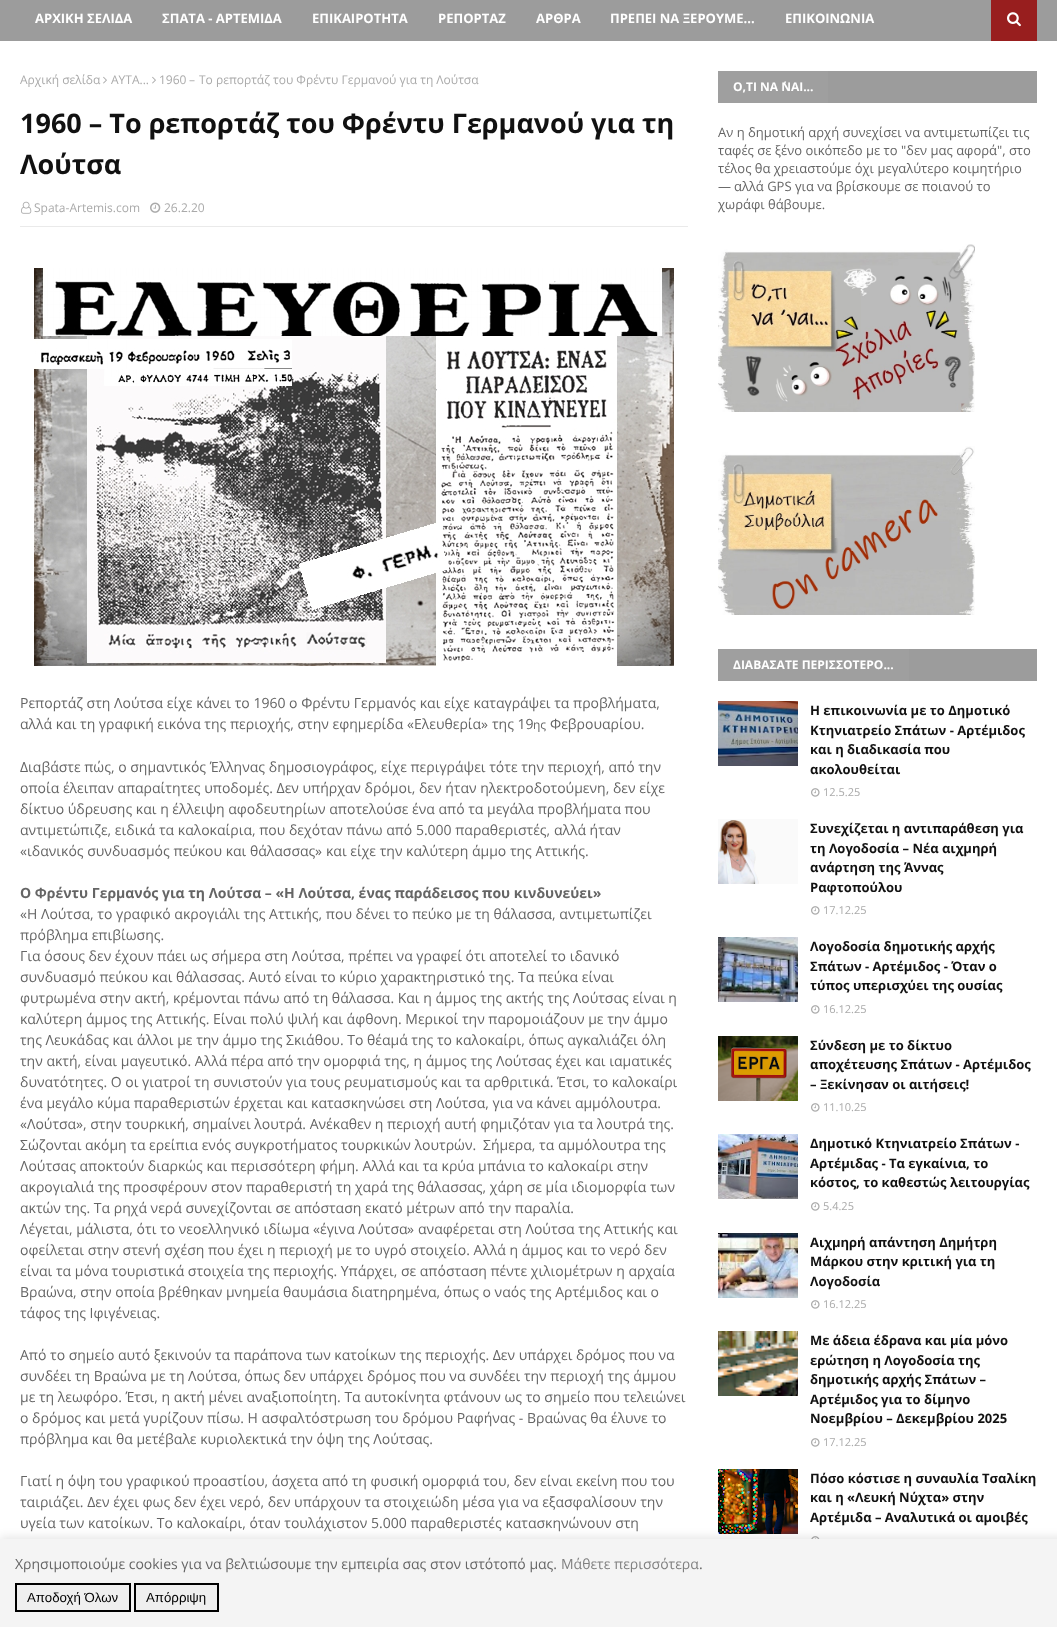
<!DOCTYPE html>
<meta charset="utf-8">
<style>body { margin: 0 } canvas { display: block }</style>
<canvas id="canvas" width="1057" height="1627"></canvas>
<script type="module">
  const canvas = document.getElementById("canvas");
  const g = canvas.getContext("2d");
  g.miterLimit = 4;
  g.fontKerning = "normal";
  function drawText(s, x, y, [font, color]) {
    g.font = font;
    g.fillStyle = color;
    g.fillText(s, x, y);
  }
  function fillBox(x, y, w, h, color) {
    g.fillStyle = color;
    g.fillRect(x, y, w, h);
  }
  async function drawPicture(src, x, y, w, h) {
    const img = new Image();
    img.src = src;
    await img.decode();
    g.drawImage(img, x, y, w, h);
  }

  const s1 = ["bold 13px Open Sans", "#FFFFFF"];
  const s2 = ["12px Open Sans", "#AAAAAA"];
  const s3 = ["12px 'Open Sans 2'", "#AAAAAA"];
  const s4 = ["bold 27px Open Sans", "#111111"];
  const s5 = ["14px Open Sans", "#656565"];
  const s6 = ["14px 'Open Sans 2'", "#656565"];
  const s7 = ["12px Open Sans", "#656565"];
  const s8 = ["bold 14px Open Sans", "#656565"];
  const s9 = ["bold 12px Open Sans", "#FFFFFF"];
  const s10 = ["13px Open Sans", "#656565"];
  const s11 = ["13px 'Open Sans 2'", "#656565"];
  const s12 = ["bold 13px Open Sans", "#111111"];
  const s13 = ["11px Open Sans", "#AAAAAA"];
  const s14 = ["14px Open Sans", "#808080"];
  const s15 = ["13.25px Liberation Sans", "#000000"];

  fillBox(0, 0, 1057, 1627, "#FFFFFF");
  fillBox(0, 0, 1057, 41, "#9C9C9C");
  drawText("ΑΡΧΙΚΗ ΣΕΛΙΔΑ", 35, 23, s1);
  drawText("ΣΠΑΤΑ - ΑΡΤΕΜΙΔΑ", 162, 23, s1);
  drawText("ΕΠΙΚΑΙΡΟΤΗΤΑ", 312, 23, s1);
  drawText("ΡΕΠΟΡΤΑΖ", 438, 23, s1);
  drawText("ΑΡΘΡΑ", 536, 23, s1);
  drawText("ΠΡΕΠΕΙ ΝΑ ΞΕΡΟΥΜΕ...", 610, 23, s1);
  drawText("ΕΠΙΚΟΙΝΩΝΙΑ", 785, 23, s1);
  fillBox(991, 0, 46, 41, "#981E1E");
  await drawPicture("pic1.png", 1007, 12, 14, 15);
  drawText("Αρχική σελίδα", 20, 84, s2);
  await drawPicture("pic2.png", 103, 76, 4, 8);
  drawText("ΑΥΤΑ...", 111, 84, s2);
  await drawPicture("pic2.png", 152, 76, 4, 8);
  drawText("1960", 159, 84, s2);
  drawText("–", 189, 84, s3);
  drawText("Το ρεπορτάζ του Φρέντυ Γερμανού για τη Λούτσα", 199, 84, s2);
  drawText("1960 – Το ρεπορτάζ του Φρέντυ Γερμανού για τη", 20, 133, s4);
  drawText("Λούτσα", 20, 174, s4);
  fillBox(20, 226, 668, 1, "#EAEAEA");
  await drawPicture("pic3.png", 21, 201, 11, 13);
  drawText("Spata-Artemis.com", 34, 212, s2);
  await drawPicture("pic4.png", 150, 202, 11, 11);
  drawText("26.2.20", 164, 212, s2);
  await drawPicture("pic5.png", 34, 268, 640, 398);
  drawText("Ρεπορτάζ στη Λούτσα είχε κάνει το 1960 ο Φρέντυ Γερμανός και είχε καταγράψει τα προβλήματα,", 20, 708, s5);
  drawText("αλλά και τη γραφική εικόνα της περιοχής, στην εφημερίδα", 20, 729, s5);
  drawText("«", 407, 729, s6);
  drawText("Ελευθερία", 414, 729, s5);
  drawText("»", 481, 729, s6);
  drawText("της 19", 492, 729, s5);
  drawText("ης", 533, 729, s7);
  drawText("Φεβρουαρίου.", 550, 729, s5);
  drawText("Διαβάστε πώς, ο σημαντικός Έλληνας δημοσιογράφος, είχε περιγράψει τότε την περιοχή, από την", 20, 772, s5);
  drawText("οποία έλειπαν απαραίτητες υποδομές. Δεν υπήρχαν δρόμοι, δεν ήταν ηλεκτροδοτούμενη, δεν είχε", 20, 793, s5);
  drawText("δίκτυο ύδρευσης και η έλλειψη αφοδευτηρίων αποτελούσε ένα από τα μεγάλα προβλήματα που", 20, 814, s5);
  drawText("αντιμετώπιζε, ειδικά τα καλοκαίρια, που δεχόταν πάνω από 5.000 παραθεριστές, αλλά ήταν", 20, 835, s5);
  drawText("«", 20, 856, s6);
  drawText("ιδανικός συνδυασμός πεύκου και θάλασσας", 27, 856, s5);
  drawText("»", 315, 856, s6);
  drawText("και είχε την καλύτερη άμμο της Αττικής.", 326, 856, s5);
  drawText("Ο Φρέντυ Γερμανός για τη Λούτσα – «Η Λούτσα, ένας παράδεισος που κινδυνεύει»", 20, 898, s8);
  drawText("«", 20, 919, s6);
  drawText("Η Λούτσα, το γραφικό ακρογιάλι της Αττικής, που δένει το πεύκο με τη θάλασσα, αντιμετωπίζει", 27, 919, s5);
  drawText("πρόβλημα επιβίωσης.", 20, 940, s5);
  drawText("Για όσους δεν έχουν πάει ως σήμερα στη Λούτσα, πρέπει να γραφεί ότι αποτελεί το ιδανικό", 20, 961, s5);
  drawText("συνδυασμό πεύκου και θάλασσας. Αυτό είναι το κύριο χαρακτηριστικό της. Τα πεύκα είναι", 20, 982, s5);
  drawText("φυτρωμένα στην ακτή, κρέμονται πάνω από τη θάλασσα. Και η άμμος της ακτής της Λούτσας είναι η", 20, 1003, s5);
  drawText("καλύτερη άμμος της Αττικής. Είναι πολύ ψιλή και άφθονη. Μερικοί την παρομοιάζουν με την άμμο", 20, 1024, s5);
  drawText("της Λευκάδας και άλλοι με την άμμο της Σκιάθου. Το θέαμά της το καλοκαίρι, όπως αγκαλιάζει όλη", 20, 1045, s5);
  drawText("την ακτή, είναι μαγευτικό. Αλλά πέρα από την ομορφιά της, η άμμος της Λούτσας έχει και ιαματικές", 20, 1066, s5);
  drawText("δυνατότητες. Ο οι γιατροί τη συνιστούν για τους ρευματισμούς και τα αρθριτικά. Έτσι, το καλοκαίρι", 20, 1087, s5);
  drawText("ένα μεγάλο κύμα παραθεριστών έρχεται και κατασκηνώσει στη Λούτσα, για να κάνει αμμόλουτρα.", 20, 1108, s5);
  drawText("«", 20, 1129, s6);
  drawText("Λούτσα", 27, 1129, s5);
  drawText("»", 76, 1129, s6);
  drawText(", στην τουρκική, σημαίνει λουτρά. Ανέκαθεν η περιοχή αυτή φημιζόταν για τα λουτρά της.", 83, 1129, s5);
  drawText("Σώζονται ακόμη τα ερείπια ενός συγκροτήματος τουρκικών λουτρών.", 20, 1150, s5);
  drawText("Σήμερα, τα αμμόλουτρα της", 483, 1150, s5);
  drawText("Λούτσας αποκτούν διαρκώς και περισσότερη φήμη. Αλλά και τα κρύα μπάνια το καλοκαίρι στην", 20, 1171, s5);
  drawText("ακρογιαλιά της προσφέρουν στον παραθεριστή τη χαρά της θάλασσας, χάρη σε μία ιδιομορφία των", 20, 1192, s5);
  drawText("ακτών της. Τα ρηχά νερά συνεχίζονται σε απόσταση εκατό μέτρων από την παραλία.", 20, 1213, s5);
  drawText("Λέγεται, μάλιστα, ότι το νεοελληνικό ιδίωμα", 20, 1234, s5);
  drawText("«", 313, 1234, s6);
  drawText("έγινα Λούτσα", 320, 1234, s5);
  drawText("»", 407, 1234, s6);
  drawText("αναφέρεται στη Λούτσα της Αττικής και", 418, 1234, s5);
  drawText("οφείλεται στην στενή σχέση που έχει η περιοχή με το υγρό στοιχείο. Αλλά η άμμος και το νερό δεν", 20, 1255, s5);
  drawText("είναι τα μόνα τουριστικά στοιχεία της περιοχής. Υπάρχει, σε απόσταση πέντε χιλιομέτρων η αρχαία", 20, 1276, s5);
  drawText("Βραώνα, στην οποία βρέθηκαν μνημεία θαυμάσια διατηρημένα, όπως ο ναός της Αρτέμιδος και ο", 20, 1297, s5);
  drawText("τάφος της Ιφιγένειας.", 20, 1318, s5);
  drawText("Από το σημείο αυτό ξεκινούν τα παράπονα των κατοίκων της περιοχής. Δεν υπάρχει δρόμος που να", 20, 1360, s5);
  drawText("συνδέει τη Βραώνα με τη Λούτσα, όπως δεν υπάρχει δρόμος που να συνδέει την περιοχή της άμμου", 20, 1381, s5);
  drawText("με τη λεωφόρο. Έτσι, η ακτή μένει αναξιοποίητη. Τα αυτοκίνητα φτάνουν ως το σημείο που τελειώνει", 20, 1402, s5);
  drawText("ο δρόμος και μετά γυρίζουν πίσω. Η ασφαλτόστρωση του δρόμου Ραφήνας - Βραώνας θα έλυνε το", 20, 1423, s5);
  drawText("πρόβλημα και θα μετέβαλε κυριολεκτικά την όψη της Λούτσας.", 20, 1444, s5);
  drawText("Γιατί η όψη του γραφικού προαστίου, άσχετα από τη φυσική ομορφιά του, δεν είναι εκείνη που του", 20, 1486, s5);
  drawText("ταιριάζει. Δεν έχει φως δεν έχει νερό, δεν υπάρχουν τα στοιχειώδη μέσα για να εξασφαλίσουν την", 20, 1507, s5);
  drawText("υγεία των κατοίκων. Το καλοκαίρι, όταν τουλάχιστον 5.000 παραθεριστές κατασκηνώνουν στη", 20, 1528, s5);
  fillBox(828, 71, 209, 32, "#9C9C9C");
  fillBox(718, 71, 110, 32, "#9F9F9F");
  drawText("Ο,ΤΙ ΝΑ ΄ΝΑΙ...", 733, 91, s9);
  drawText("Αν η δημοτική αρχή συνεχίσει να αντιμετωπίζει τις", 718, 137, s10);
  drawText("ταφές σε ξένο οικόπεδο με το \"δεν μας αφορά\", στο", 718, 155, s10);
  drawText("τέλος θα χρειαστούμε όχι μεγαλύτερο κοιμητήριο", 718, 173, s10);
  drawText("—", 718, 191, s11);
  drawText("αλλά GPS για να βρίσκουμε σε ποιανού το", 734, 191, s10);
  drawText("χωράφι θάβουμε.", 718, 209, s10);
  await drawPicture("pic6.png", 718, 244, 257, 168);
  await drawPicture("pic7.png", 718, 446, 257, 169);
  fillBox(909, 649, 128, 32, "#9C9C9C");
  fillBox(718, 649, 191, 32, "#9F9F9F");
  drawText("ΔΙΑΒΑΣΑΤΕ ΠΕΡΙΣΣΟΤΕΡΟ...", 733, 669, s9);
  await drawPicture("pic8.png", 718, 701, 80, 65);
  drawText("Η επικοινωνία με το Δημοτικό", 810, 715, s12);
  drawText("Κτηνιατρείο Σπάτων - Αρτέμιδος", 810, 735, s12);
  drawText("και η διαδικασία που", 810, 754, s12);
  drawText("ακολουθείται", 810, 774, s12);
  await drawPicture("pic9.png", 811, 788, 9, 9);
  drawText("12.5.25", 823, 796, s13);
  fillBox(718, 819, 80, 65, "#FAFAFA");
  await drawPicture("pic10.png", 718, 820, 41, 64);
  drawText("Συνεχίζεται η αντιπαράθεση για", 810, 833, s12);
  drawText("τη Λογοδοσία – Νέα αιχμηρή", 810, 853, s12);
  drawText("ανάρτηση της Άννας", 810, 872, s12);
  drawText("Ραφτοπούλου", 810, 892, s12);
  await drawPicture("pic9.png", 811, 906, 9, 9);
  drawText("17.12.25", 823, 914, s13);
  await drawPicture("pic11.png", 718, 937, 80, 65);
  drawText("Λογοδοσία δημοτικής αρχής", 810, 951, s12);
  drawText("Σπάτων - Αρτέμιδος - Όταν ο", 810, 971, s12);
  drawText("τύπος υπερισχύει της ουσίας", 810, 990, s12);
  await drawPicture("pic9.png", 811, 1005, 9, 9);
  drawText("16.12.25", 823, 1013, s13);
  await drawPicture("pic12.png", 718, 1036, 80, 65);
  drawText("Σύνδεση με το δίκτυο", 810, 1050, s12);
  drawText("αποχέτευσης Σπάτων - Αρτέμιδος", 810, 1069, s12);
  drawText("– Ξεκίνησαν οι αιτήσεις!", 810, 1089, s12);
  await drawPicture("pic9.png", 811, 1103, 9, 9);
  drawText("11.10.25", 823, 1111, s13);
  await drawPicture("pic13.png", 718, 1134, 80, 65);
  drawText("Δημοτικό Κτηνιατρείο Σπάτων -", 810, 1148, s12);
  drawText("Αρτέμιδας - Τα εγκαίνια, το", 810, 1168, s12);
  drawText("κόστος, το καθεστώς λειτουργίας", 810, 1187, s12);
  await drawPicture("pic9.png", 811, 1202, 9, 9);
  drawText("5.4.25", 823, 1210, s13);
  await drawPicture("pic14.png", 718, 1233, 80, 65);
  drawText("Αιχμηρή απάντηση Δημήτρη", 810, 1247, s12);
  drawText("Μάρκου στην κριτική για τη", 810, 1266, s12);
  drawText("Λογοδοσία", 810, 1286, s12);
  await drawPicture("pic9.png", 811, 1300, 9, 9);
  drawText("16.12.25", 823, 1308, s13);
  await drawPicture("pic15.png", 718, 1331, 80, 65);
  drawText("Με άδεια έδρανα και μία μόνο", 810, 1345, s12);
  drawText("ερώτηση η Λογοδοσία της", 810, 1365, s12);
  drawText("δημοτικής αρχής Σπάτων –", 810, 1384, s12);
  drawText("Αρτέμιδος για το δίμηνο", 810, 1404, s12);
  drawText("Νοεμβρίου – Δεκεμβρίου 2025", 810, 1423, s12);
  await drawPicture("pic9.png", 811, 1438, 9, 9);
  drawText("17.12.25", 823, 1446, s13);
  await drawPicture("pic16.png", 718, 1469, 80, 65);
  drawText("Πόσο κόστισε η συναυλία Τσαλίκη", 810, 1483, s12);
  drawText("και η «Λευκή Νύχτα» στην", 810, 1502, s12);
  drawText("Αρτέμιδα – Αναλυτικά οι αμοιβές", 810, 1522, s12);
  await drawPicture("pic17.png", 811, 1536, 9, 3);
  g.fillStyle = "rgba(0, 0, 0, 0.1)";
  g.filter = "blur(5px)";
  g.beginPath();
  g.rect(0, 1537, 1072, 88);
  g.fill();
  g.filter = "none";
  fillBox(0, 1539, 1057, 88, "#F4F4F4");
  drawText("Χρησιμοποιούμε cookies για να βελτιώσουμε την εμπειρία σας στον ιστότοπό μας.", 15, 1569, s5);
  drawText("Μάθετε περισσότερα", 561, 1569, s14);
  drawText(".", 699, 1569, s5);
  g.fillStyle = "#EFEFEF";
  g.beginPath();
  g.rect(16, 1584, 114, 27);
  g.fill();
  g.strokeStyle = "#000000";
  g.lineWidth = 2;
  g.stroke();
  drawText("Αποδοχή Όλων", 27, 1602, s15);
  g.fillStyle = "#EFEFEF";
  g.beginPath();
  g.rect(135, 1584, 83, 27);
  g.fill();
  g.stroke();
  drawText("Απόρριψη", 146, 1602, s15);
</script>
